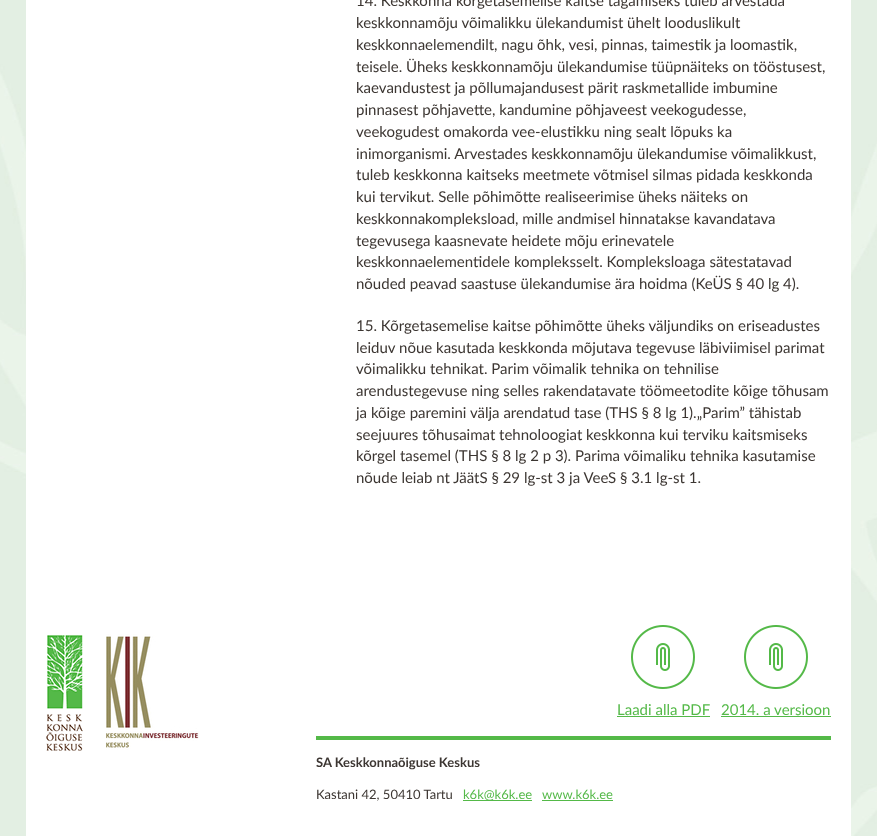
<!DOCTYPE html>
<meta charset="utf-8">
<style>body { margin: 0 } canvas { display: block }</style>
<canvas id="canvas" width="877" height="836"></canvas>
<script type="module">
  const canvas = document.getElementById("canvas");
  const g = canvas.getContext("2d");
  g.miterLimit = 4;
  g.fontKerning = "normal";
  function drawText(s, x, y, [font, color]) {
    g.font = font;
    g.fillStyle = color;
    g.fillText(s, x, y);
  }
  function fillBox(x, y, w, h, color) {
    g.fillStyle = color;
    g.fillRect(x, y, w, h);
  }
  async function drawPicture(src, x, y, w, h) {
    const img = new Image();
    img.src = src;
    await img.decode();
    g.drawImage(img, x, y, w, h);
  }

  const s1 = ["15px Lato", "#3C3632"];
  const s2 = ["15px Lato", "#54B948"];
  const s3 = ["bold 13px Lato", "#3C3632"];
  const s4 = ["13px Lato", "#3C3632"];
  const s5 = ["13px Lato", "#54B948"];

  fillBox(0, 0, 877, 836, "#FFFFFF");
  await drawPicture("pic1.png", 0, 0, 877, 836);
  fillBox(26, 0, 825, 836, "#FFFFFF");
  drawText("14. Keskkonna kõrgetasemelise kaitse tagamiseks tuleb arvestada", 356, 6, s1);
  drawText("keskkonnamõju võimalikku ülekandumist ühelt looduslikult", 356, 28, s1);
  drawText("keskkonnaelemendilt, nagu õhk, vesi, pinnas, taimestik ja loomastik,", 356, 50, s1);
  drawText("teisele. Üheks keskkonnamõju ülekandumise tüüpnäiteks on tööstusest,", 356, 72, s1);
  drawText("kaevandustest ja põllumajandusest pärit raskmetallide imbumine", 356, 93, s1);
  drawText("pinnasest põhjavette, kandumine põhjaveest veekogudesse,", 356, 115, s1);
  drawText("veekogudest omakorda vee-elustikku ning sealt lõpuks ka", 356, 137, s1);
  drawText("inimorganismi. Arvestades keskkonnamõju ülekandumise võimalikkust,", 356, 159, s1);
  drawText("tuleb keskkonna kaitseks meetmete võtmisel silmas pidada keskkonda", 356, 180, s1);
  drawText("kui tervikut. Selle põhimõtte realiseerimise üheks näiteks on", 356, 202, s1);
  drawText("keskkonnakompleksload, mille andmisel hinnatakse kavandatava", 356, 224, s1);
  drawText("tegevusega kaasnevate heidete mõju erinevatele", 356, 246, s1);
  drawText("keskkonnaelementidele kompleksselt. Kompleksloaga sätestatavad", 356, 267, s1);
  drawText("nõuded peavad saastuse ülekandumise ära hoidma (KeÜS § 40 lg 4).", 356, 289, s1);
  drawText("15. Kõrgetasemelise kaitse põhimõtte üheks väljundiks on eriseadustes", 356, 331, s1);
  drawText("leiduv nõue kasutada keskkonda mõjutava tegevuse läbiviimisel parimat", 356, 353, s1);
  drawText("võimalikku tehnikat. Parim võimalik tehnika on tehnilise", 356, 374, s1);
  drawText("arendustegevuse ning selles rakendatavate töömeetodite kõige tõhusam", 356, 396, s1);
  drawText("ja kõige paremini välja arendatud tase (THS § 8 lg 1).„Parim” tähistab", 356, 418, s1);
  drawText("seejuures tõhusaimat tehnoloogiat keskkonna kui terviku kaitsmiseks", 356, 440, s1);
  drawText("kõrgel tasemel (THS § 8 lg 2 p 3). Parima võimaliku tehnika kasutamise", 356, 461, s1);
  drawText("nõude leiab nt JäätS § 29 lg-st 3 ja VeeS § 3.1 lg-st 1.", 356, 483, s1);
  await drawPicture("pic2.png", 46, 635, 37, 116);
  await drawPicture("pic3.png", 106, 634, 93, 116);
  await drawPicture("pic4.png", 631, 625, 64, 64);
  await drawPicture("pic4.png", 744, 625, 64, 64);
  drawText("Laadi alla PDF", 617, 715, s2);
  fillBox(617, 716, 93, 1, "#54B948");
  drawText("2014. a versioon", 721, 715, s2);
  fillBox(721, 716, 110, 1, "#54B948");
  fillBox(316, 736, 515, 4, "#54B948");
  drawText("SA Keskkonnaõiguse Keskus", 316, 767, s3);
  drawText("Kastani 42, 50410 Tartu", 316, 799, s4);
  fillBox(463, 800, 69, 1, "#54B948");
  drawText("k6k@k6k.ee", 463, 799, s5);
  drawText("www.k6k.ee", 542, 799, s5);
  fillBox(542, 800, 71, 1, "#54B948");
</script>
